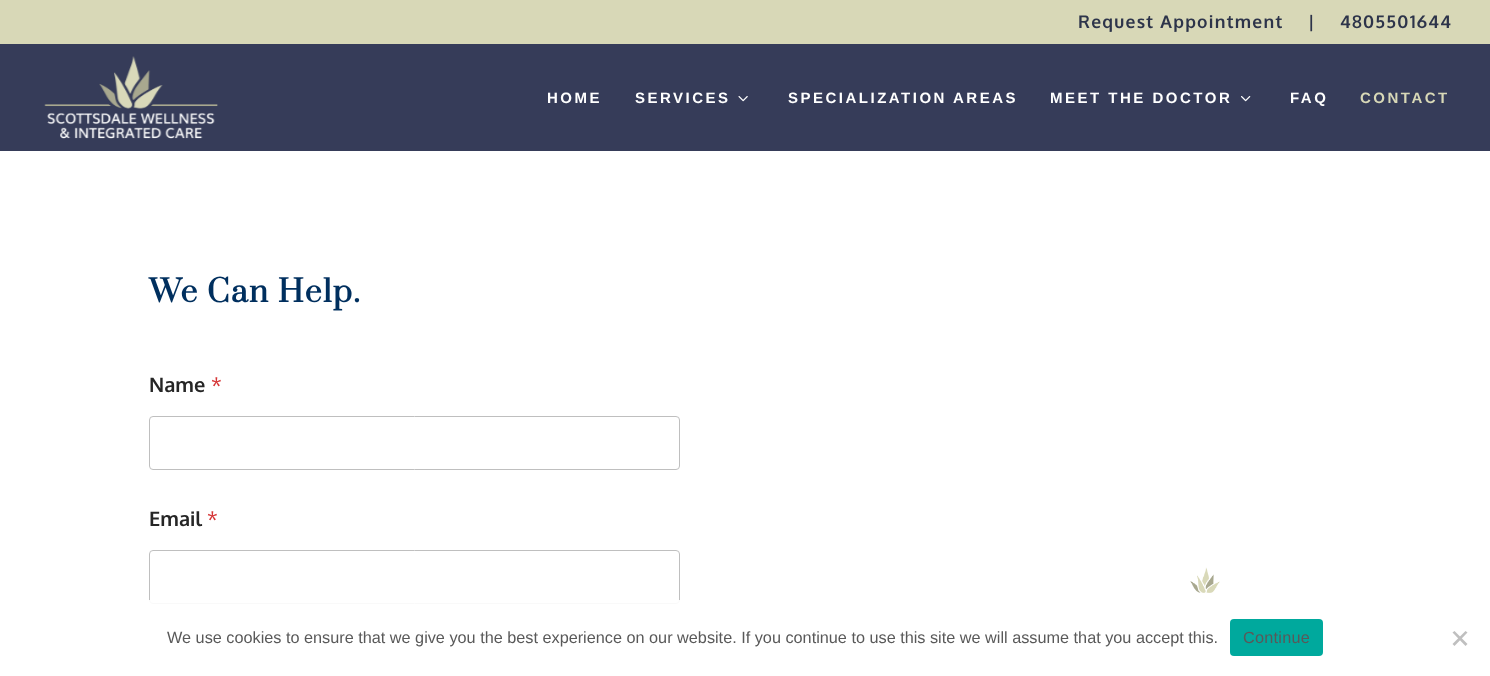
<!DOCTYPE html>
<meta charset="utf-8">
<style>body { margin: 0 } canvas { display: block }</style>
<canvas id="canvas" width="1490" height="676"></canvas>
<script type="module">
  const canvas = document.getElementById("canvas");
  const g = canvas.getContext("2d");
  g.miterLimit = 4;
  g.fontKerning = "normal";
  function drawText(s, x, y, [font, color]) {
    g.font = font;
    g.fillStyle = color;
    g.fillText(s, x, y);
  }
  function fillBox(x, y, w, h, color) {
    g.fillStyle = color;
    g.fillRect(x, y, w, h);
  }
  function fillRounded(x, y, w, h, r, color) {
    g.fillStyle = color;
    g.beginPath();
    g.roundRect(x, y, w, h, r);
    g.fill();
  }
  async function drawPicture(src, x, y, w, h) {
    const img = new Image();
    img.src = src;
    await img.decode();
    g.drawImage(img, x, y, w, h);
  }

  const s1 = ["bold 17.5px Oxygen", "#2D344A"];
  const s2 = ["bold 15px Liberation Sans", "#FFFFFF"];
  const s3 = ["bold 15px Liberation Sans", "#D8D8B7"];
  const s4 = ["bold 30px Prata", "#002F5E"];
  const s5 = ["bold 20px Oxygen", "#262626"];
  const s6 = ["20px Oxygen", "#D63637"];
  const s7 = ["16.25px Liberation Sans", "#595959"];

  fillBox(0, 0, 1490, 676, "#FFFFFF");
  fillBox(0, 0, 1490, 44, "#D8D8B7");
  g.letterSpacing = "1.25px";
  drawText("Request Appointment", 1078, 28, s1);
  drawText("|", 1308, 28, s1);
  drawText("4805501644", 1340, 28, s1);
  fillBox(0, 44, 1490, 107, "#363C59");
  await drawPicture("pic1.png", 44, 56, 174, 83);
  g.letterSpacing = "2.5px";
  drawText("HOME", 547, 103, s2);
  drawText("SERVICES", 635, 103, s2);
  await drawPicture("pic2.png", 738, 96, 10, 6);
  drawText("SPECIALIZATION AREAS", 788, 103, s2);
  drawText("MEET THE DOCTOR", 1050, 103, s2);
  await drawPicture("pic3.png", 1241, 96, 10, 6);
  drawText("FAQ", 1290, 103, s2);
  drawText("CONTACT", 1360, 103, s3);
  g.letterSpacing = "1.25px";
  drawText("We Can Help.", 149, 302, s4);
  g.letterSpacing = "0px";
  drawText("Name", 149, 392, s5);
  drawText("*", 211, 392, s6);
  g.beginPath();
  g.roundRect(149.5, 416.5, 530, 53, 3.5);
  g.strokeStyle = "#BFBFBF";
  g.stroke();
  drawText("Email", 149, 526, s5);
  drawText("*", 207, 526, s6);
  g.beginPath();
  g.roundRect(149.5, 550.5, 530, 53, 3.5);
  g.stroke();
  await drawPicture("pic4.png", 1190, 567, 30, 26);
  fillBox(149, 600, 531, 4, "rgba(255, 255, 255, 0.91)");
  drawText("We use cookies to ensure that we give you the best experience on our website. If you continue to use this site we will assume that you accept this.", 167, 643, s7);
  fillRounded(1230, 619, 93, 37, 4, "#00A99D");
  g.letterSpacing = "0.25px";
  drawText("Continue", 1243, 643, s7);
  g.fillStyle = "#BFBFBF";
  g.beginPath();
  g.moveTo(1465.5, 631);
  g.lineTo(1467.5, 632.5);
  g.lineTo(1454.5, 646);
  g.lineTo(1452.5, 644);
  g.closePath();
  g.fill();
  g.beginPath();
  g.moveTo(1452.5, 632.5);
  g.lineTo(1454.5, 631);
  g.lineTo(1467.5, 644);
  g.lineTo(1465.5, 646);
  g.closePath();
  g.fill();
</script>
